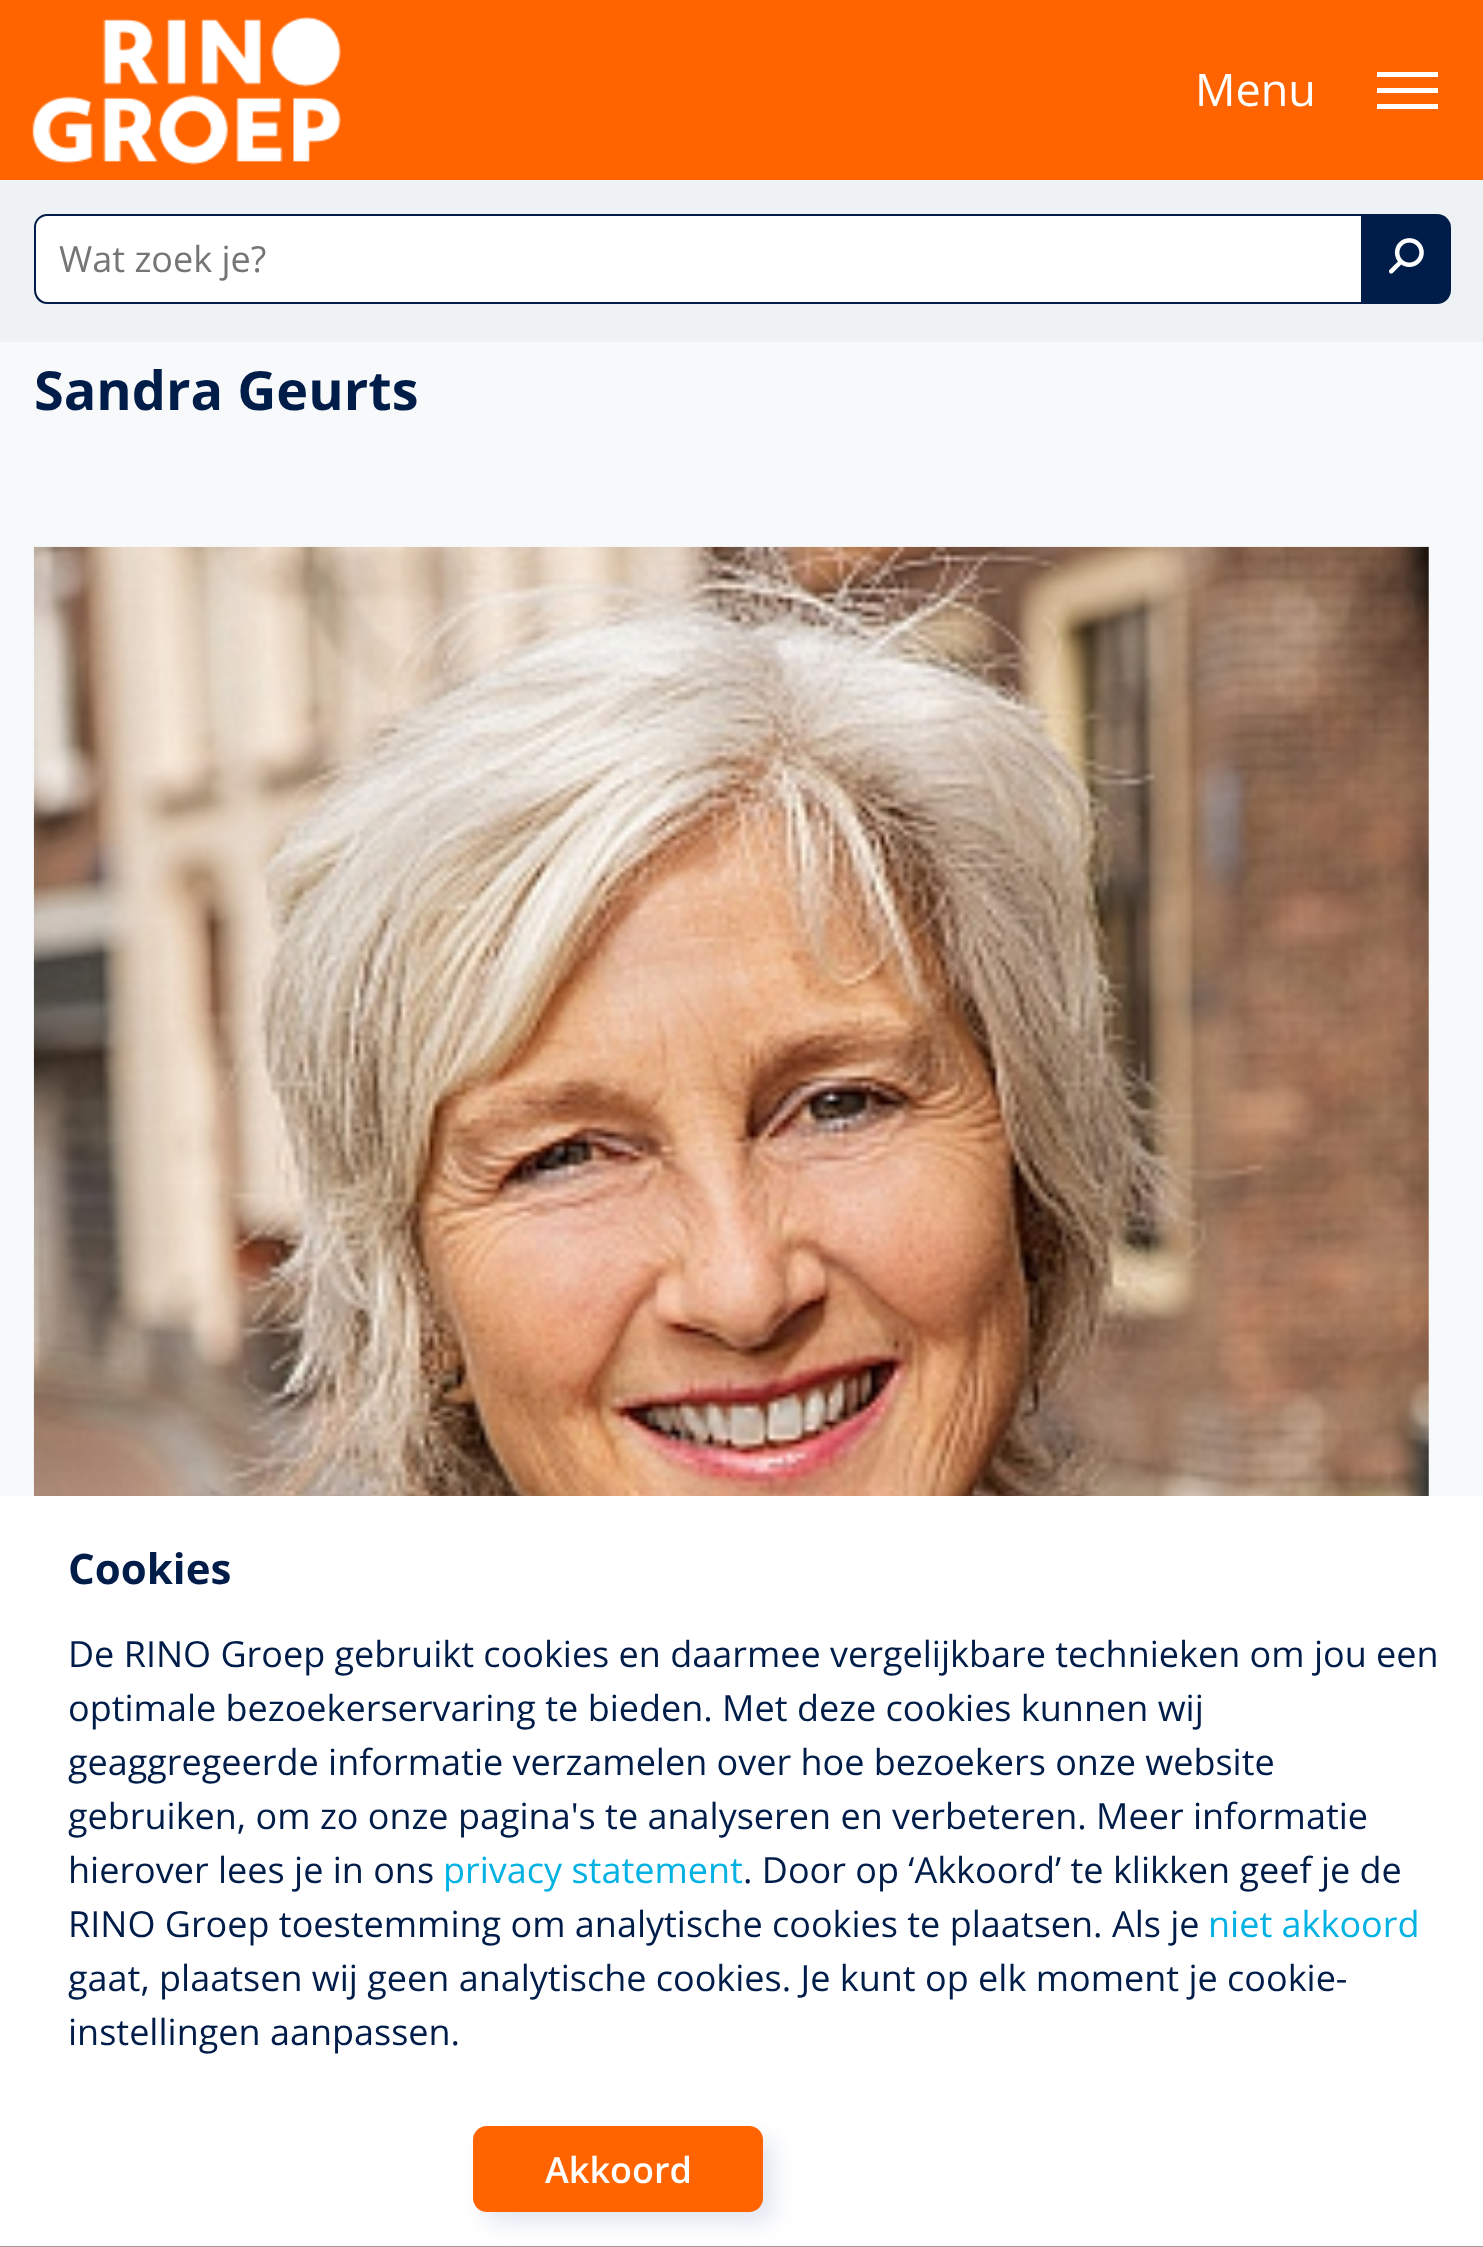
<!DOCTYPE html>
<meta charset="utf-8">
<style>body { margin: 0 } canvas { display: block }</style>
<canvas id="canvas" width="1483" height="2247"></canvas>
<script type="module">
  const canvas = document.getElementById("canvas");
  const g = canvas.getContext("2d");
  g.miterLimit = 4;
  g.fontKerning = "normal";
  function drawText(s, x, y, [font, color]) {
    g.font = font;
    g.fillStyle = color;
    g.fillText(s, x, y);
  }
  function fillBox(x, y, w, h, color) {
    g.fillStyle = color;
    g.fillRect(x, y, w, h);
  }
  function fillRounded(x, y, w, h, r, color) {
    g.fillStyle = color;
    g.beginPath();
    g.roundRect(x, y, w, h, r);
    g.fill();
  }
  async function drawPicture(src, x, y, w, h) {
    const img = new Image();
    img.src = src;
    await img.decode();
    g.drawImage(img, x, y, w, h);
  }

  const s1 = ["45px Open Sans", "#FFFFFF"];
  const s2 = ["36px Open Sans", "#757575"];
  const s3 = ["bold 54px Open Sans", "#001D49"];
  const s4 = ["bold 42px Open Sans", "#001D49"];
  const s5 = ["36px Open Sans", "#001D49"];
  const s6 = ["36px Open Sans", "#03B1E3"];
  const s7 = ["600 36px Open Sans", "#FFFFFF"];

  fillBox(0, 0, 1483, 2247, "#F8F9FB");
  fillBox(0, 0, 1483, 180, "#FF6400");
  await drawPicture("pic1.png", 32, 17, 309, 148);
  drawText("Menu", 1195, 106, s1);
  fillBox(1377, 88, 61, 5, "#FFFFFF");
  fillBox(1377, 72, 61, 5, "#FFFFFF");
  fillBox(1377, 104, 61, 5, "#FFFFFF");
  fillBox(0, 180, 1483, 162, "#EFF2F4");
  g.fillStyle = "#FFFFFF";
  g.beginPath();
  g.roundRect(34, 214, 1327, 90, [14, 0, 0, 14]);
  g.fill();
  g.fillStyle = "#001D49";
  g.beginPath();
  g.moveTo(47, 214);
  g.lineTo(1361, 214);
  g.lineTo(1361, 304);
  g.lineTo(47, 304);
  g.bezierCurveTo(40, 304, 34, 298, 34, 290);
  g.lineTo(34, 227);
  g.bezierCurveTo(34, 220, 40, 214, 47, 214);
  g.closePath();
  g.moveTo(47, 216);
  g.lineTo(1361, 216);
  g.lineTo(1361, 302);
  g.lineTo(47, 302);
  g.bezierCurveTo(41, 302, 36, 296, 36, 290);
  g.lineTo(36, 227);
  g.bezierCurveTo(36, 221, 41, 216, 47, 216);
  g.closePath();
  g.fill("evenodd");
  drawText("Wat zoek je?", 59, 272, s2);
  g.fillStyle = "#001D49";
  g.beginPath();
  g.roundRect(1361, 214, 90, 90, [0, 14, 14, 0]);
  g.fill();
  await drawPicture("pic2.png", 1389, 238, 35, 36);
  drawText("Sandra Geurts", 34, 410, s3);
  await drawPicture("pic3.png", 33, 546, 1396, 950);
  fillBox(0, 1496, 1483, 750, "#FFFFFF");
  fillBox(0, 2246, 1483, 1, "#9B9B9B");
  drawText("Cookies", 68, 1584, s4);
  drawText("De RINO Groep gebruikt cookies en daarmee vergelijkbare technieken om jou een", 68, 1667, s5);
  drawText("optimale bezoekerservaring te bieden. Met deze cookies kunnen wij", 68, 1721, s5);
  drawText("geaggregeerde informatie verzamelen over hoe bezoekers onze website", 68, 1775, s5);
  drawText("gebruiken, om zo onze pagina's te analyseren en verbeteren. Meer informatie", 68, 1829, s5);
  drawText("hierover lees je in ons", 68, 1883, s5);
  drawText("privacy statement", 443, 1883, s6);
  drawText(". Door op ‘Akkoord’ te klikken geef je de", 743, 1883, s5);
  drawText("RINO Groep toestemming om analytische cookies te plaatsen. Als je", 68, 1937, s5);
  drawText("niet akkoord", 1208, 1937, s6);
  drawText("gaat, plaatsen wij geen analytische cookies. Je kunt op elk moment je cookie-", 68, 1991, s5);
  drawText("instellingen aanpassen.", 68, 2045, s5);
  g.fillStyle = "rgba(207, 213, 232, 0.6)";
  g.filter = "blur(11px)";
  g.beginPath();
  g.roundRect(484, 2138, 290, 85, 14);
  g.fill();
  g.filter = "none";
  fillRounded(473, 2126, 290, 86, 14, "#FF6400");
  drawText("Akkoord", 545, 2183, s7);
</script>
